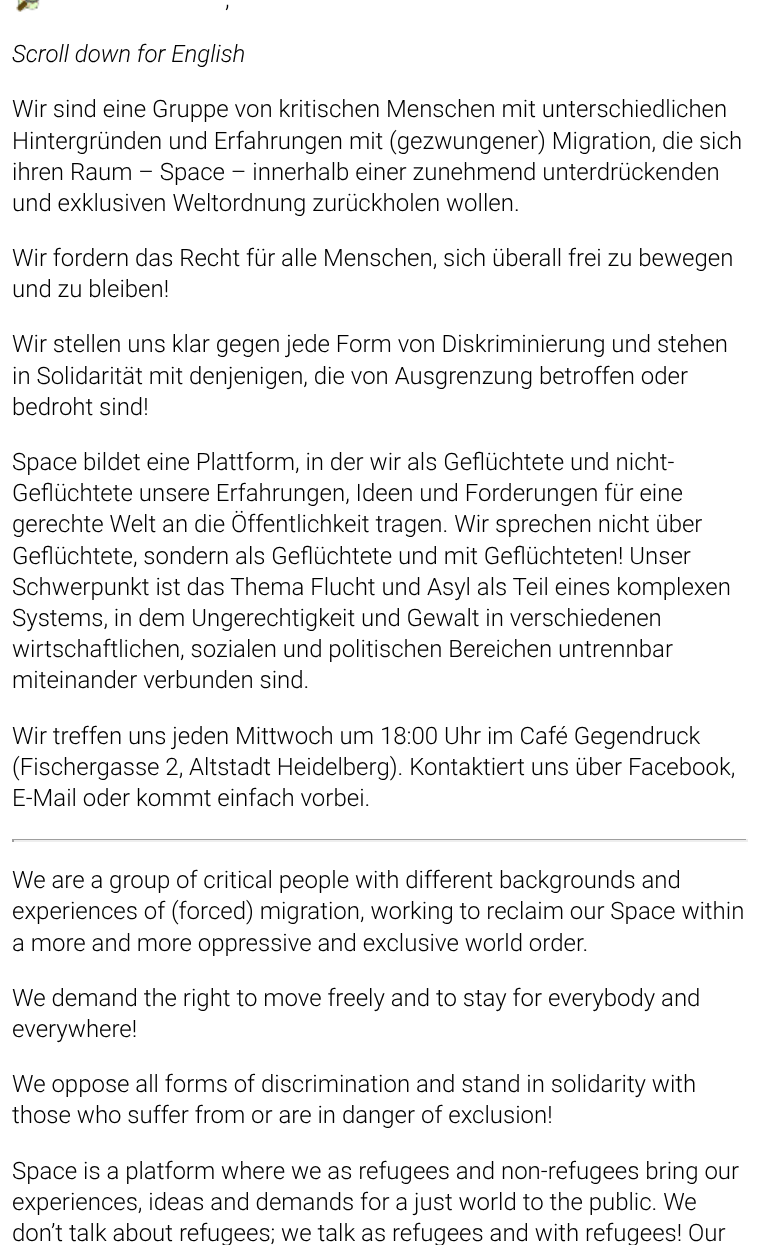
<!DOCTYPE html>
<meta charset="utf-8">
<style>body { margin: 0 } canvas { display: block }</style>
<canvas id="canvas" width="771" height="1245"></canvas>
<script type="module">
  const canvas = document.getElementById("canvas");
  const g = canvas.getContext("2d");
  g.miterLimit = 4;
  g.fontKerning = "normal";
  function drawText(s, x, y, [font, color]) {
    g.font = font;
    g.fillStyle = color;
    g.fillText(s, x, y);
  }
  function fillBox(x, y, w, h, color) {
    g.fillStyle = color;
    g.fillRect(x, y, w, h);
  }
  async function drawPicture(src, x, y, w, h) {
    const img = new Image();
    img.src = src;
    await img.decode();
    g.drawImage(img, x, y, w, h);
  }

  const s1 = ["300 24px Roboto", "#000000"];
  const s2 = ["italic 300 24px Roboto", "#000000"];

  fillBox(0, 0, 771, 1245, "#FFFFFF");
  await drawPicture("pic1.png", 16, 0, 24, 12);
  drawText(",", 225, 7, s1);
  drawText("Scroll down for English", 12, 62, s2);
  drawText("Wir sind eine Gruppe von kritischen Menschen mit unterschiedlichen", 12, 117, s1);
  drawText("Hintergründen und Erfahrungen mit (gezwungener) Migration, die sich", 12, 149, s1);
  drawText("ihren Raum – Space – innerhalb einer zunehmend unterdrückenden", 12, 180, s1);
  drawText("und exklusiven Weltordnung zurückholen wollen.", 12, 211, s1);
  drawText("Wir fordern das Recht für alle Menschen, sich überall frei zu bewegen", 12, 266, s1);
  drawText("und zu bleiben!", 12, 297, s1);
  drawText("Wir stellen uns klar gegen jede Form von Diskriminierung und stehen", 12, 352, s1);
  drawText("in Solidarität mit denjenigen, die von Ausgrenzung betroffen oder", 12, 384, s1);
  drawText("bedroht sind!", 12, 415, s1);
  drawText("Space bildet eine Plattform, in der wir als Geflüchtete und nicht-", 12, 470, s1);
  drawText("Geflüchtete unsere Erfahrungen, Ideen und Forderungen für eine", 12, 501, s1);
  drawText("gerechte Welt an die Öffentlichkeit tragen. Wir sprechen nicht über", 12, 532, s1);
  drawText("Geflüchtete, sondern als Geflüchtete und mit Geflüchteten! Unser", 12, 564, s1);
  drawText("Schwerpunkt ist das Thema Flucht und Asyl als Teil eines komplexen", 12, 595, s1);
  drawText("Systems, in dem Ungerechtigkeit und Gewalt in verschiedenen", 12, 626, s1);
  drawText("wirtschaftlichen, sozialen und politischen Bereichen untrennbar", 12, 657, s1);
  drawText("miteinander verbunden sind.", 12, 688, s1);
  drawText("Wir treffen uns jeden Mittwoch um 18:00 Uhr im Café Gegendruck", 12, 744, s1);
  drawText("(Fischergasse 2, Altstadt Heidelberg). Kontaktiert uns über Facebook,", 12, 775, s1);
  drawText("E-Mail oder kommt einfach vorbei.", 12, 806, s1);
  fillBox(12, 839, 735, 1, "#9F9F9F");
  fillBox(746, 839, 2, 3, "#EEEEEE");
  fillBox(12, 840, 735, 2, "#EEEEEE");
  fillBox(12, 839, 2, 3, "#9F9F9F");
  drawText("We are a group of critical people with different backgrounds and", 12, 888, s1);
  drawText("experiences of (forced) migration, working to reclaim our Space within", 12, 919, s1);
  drawText("a more and more oppressive and exclusive world order.", 12, 951, s1);
  drawText("We demand the right to move freely and to stay for everybody and", 12, 1006, s1);
  drawText("everywhere!", 12, 1037, s1);
  drawText("We oppose all forms of discrimination and stand in solidarity with", 12, 1092, s1);
  drawText("those who suffer from or are in danger of exclusion!", 12, 1123, s1);
  drawText("Space is a platform where we as refugees and non-refugees bring our", 12, 1179, s1);
  drawText("experiences, ideas and demands for a just world to the public. We", 12, 1210, s1);
  drawText("don’t talk about refugees; we talk as refugees and with refugees! Our", 12, 1241, s1);
</script>
